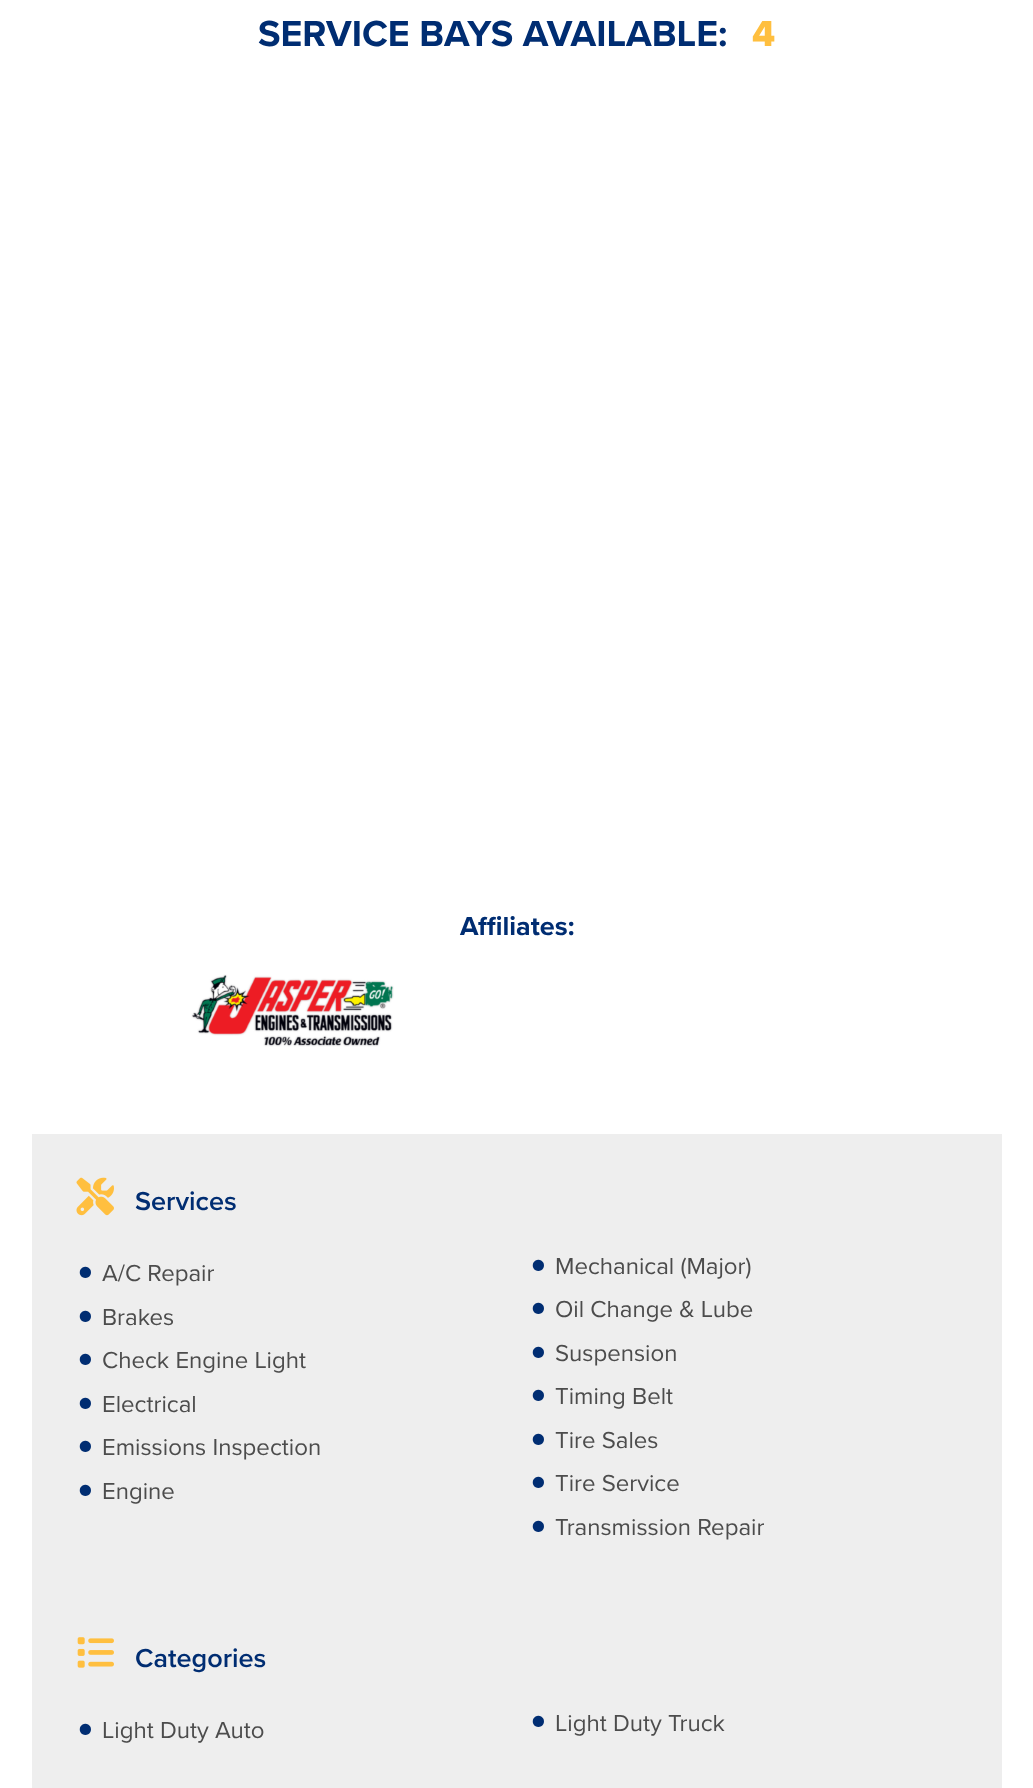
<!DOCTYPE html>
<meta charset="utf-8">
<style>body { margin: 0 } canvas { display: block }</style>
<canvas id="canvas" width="1033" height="1788"></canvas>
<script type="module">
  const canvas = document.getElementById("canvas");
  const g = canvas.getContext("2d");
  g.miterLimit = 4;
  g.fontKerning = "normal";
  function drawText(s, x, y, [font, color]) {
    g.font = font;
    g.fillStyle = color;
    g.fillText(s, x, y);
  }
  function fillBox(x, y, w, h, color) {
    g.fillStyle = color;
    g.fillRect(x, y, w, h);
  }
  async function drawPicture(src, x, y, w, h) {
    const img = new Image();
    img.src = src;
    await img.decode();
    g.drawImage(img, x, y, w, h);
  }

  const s1 = ["bold 37.5px Proxima Nova", "#002D72"];
  const s2 = ["800 37.5px Proxima Nova", "#FFBF3F"];
  const s3 = ["bold 27px Proxima Nova", "#002D72"];
  const s4 = ["600 27px Proxima Nova", "#002D72"];
  const s5 = ["52px Proxima Nova", "#002D72"];
  const s6 = ["24px Proxima Nova", "#4C4C4C"];

  fillBox(0, 0, 1033, 1788, "#FFFFFF");
  drawText("SERVICE BAYS AVAILABLE:", 258, 46, s1);
  drawText("4", 752, 46, s2);
  drawText("Affiliates:", 460, 935, s3);
  await drawPicture("pic1.png", 191, 974, 203, 73);
  fillBox(32, 1134, 970, 654, "#EEEEEE");
  await drawPicture("pic2.png", 76, 1177, 38, 39);
  drawText("Services", 135, 1210, s4);
  drawText("•", 76, 1285, s5);
  drawText("A/C Repair", 102, 1281, s6);
  drawText("•", 529, 1278, s5);
  drawText("Mechanical (Major)", 555, 1274, s6);
  drawText("•", 76, 1329, s5);
  drawText("Brakes", 102, 1325, s6);
  drawText("•", 529, 1321, s5);
  drawText("Oil Change & Lube", 555, 1317, s6);
  drawText("•", 76, 1372, s5);
  drawText("Check Engine Light", 102, 1368, s6);
  drawText("•", 529, 1365, s5);
  drawText("Suspension", 555, 1361, s6);
  drawText("•", 76, 1416, s5);
  drawText("Electrical", 102, 1412, s6);
  drawText("•", 529, 1408, s5);
  drawText("Timing Belt", 555, 1404, s6);
  drawText("•", 76, 1459, s5);
  drawText("Emissions Inspection", 102, 1455, s6);
  drawText("•", 529, 1452, s5);
  drawText("Tire Sales", 555, 1448, s6);
  drawText("•", 76, 1503, s5);
  drawText("Engine", 102, 1499, s6);
  drawText("•", 529, 1495, s5);
  drawText("Tire Service", 555, 1491, s6);
  drawText("•", 529, 1539, s5);
  drawText("Transmission Repair", 555, 1535, s6);
  await drawPicture("pic3.png", 77, 1637, 37, 31);
  drawText("Categories", 135, 1667, s4);
  drawText("•", 76, 1742, s5);
  drawText("Light Duty Auto", 102, 1738, s6);
  drawText("•", 529, 1734, s5);
  drawText("Light Duty Truck", 555, 1731, s6);
</script>
